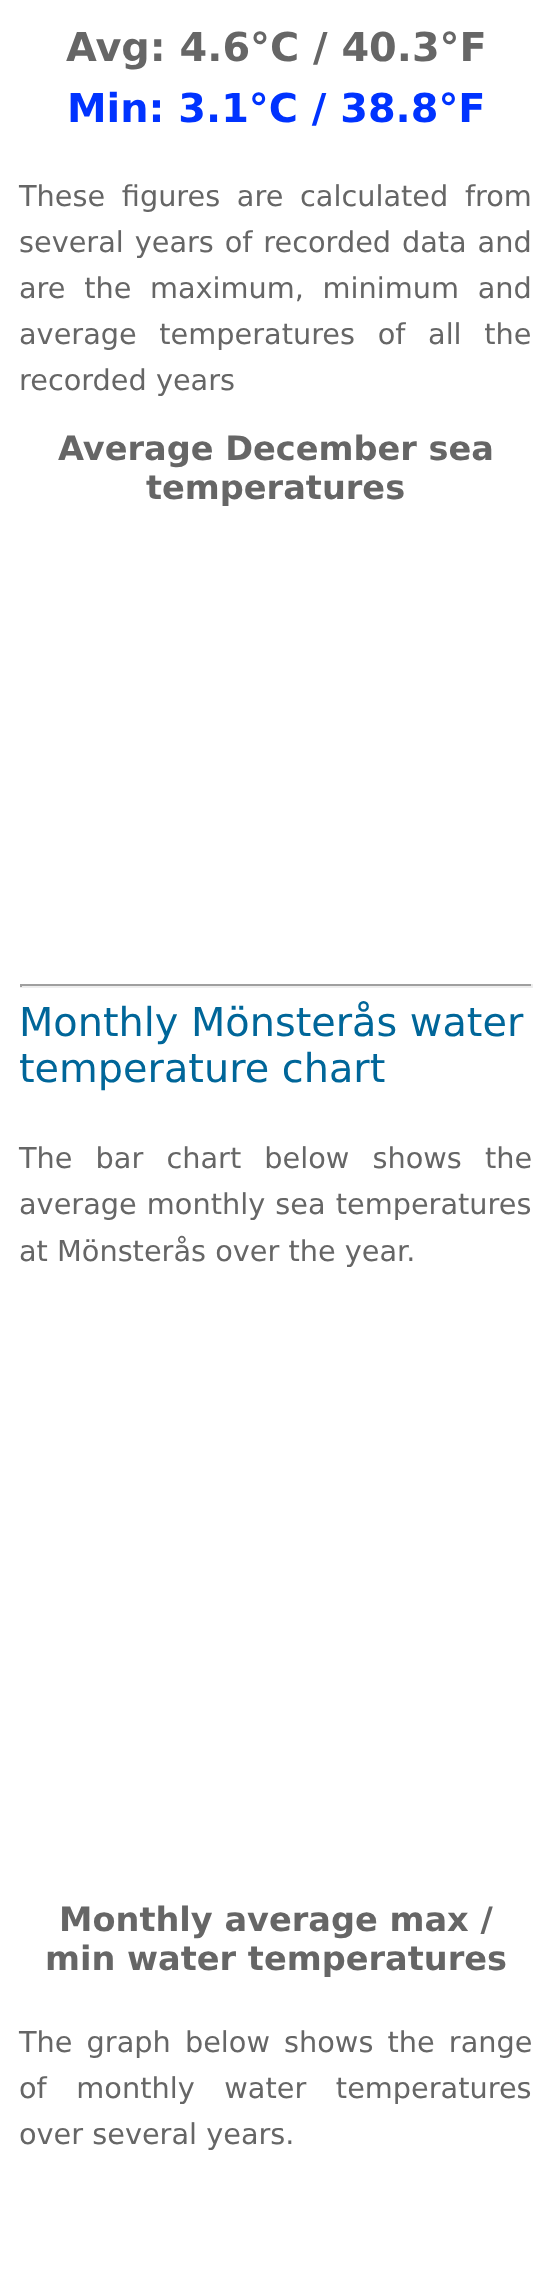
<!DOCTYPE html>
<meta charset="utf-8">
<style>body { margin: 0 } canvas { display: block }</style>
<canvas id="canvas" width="552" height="2292"></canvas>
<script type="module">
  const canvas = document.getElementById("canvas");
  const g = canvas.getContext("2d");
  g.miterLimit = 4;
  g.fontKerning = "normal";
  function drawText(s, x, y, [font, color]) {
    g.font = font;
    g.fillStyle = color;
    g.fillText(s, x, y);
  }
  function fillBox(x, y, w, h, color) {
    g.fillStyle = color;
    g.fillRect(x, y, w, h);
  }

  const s1 = ["bold 39.8px DejaVu Sans", "#666666"];
  const s2 = ["bold 39.8px DejaVu Sans", "#0033FF"];
  const s3 = ["28.75px DejaVu Sans", "#666666"];
  const s4 = ["bold 33.6px DejaVu Sans", "#666666"];
  const s5 = ["39.8px DejaVu Sans", "#006699"];

  fillBox(0, 0, 552, 2292, "#FFFFFF");
  drawText("Avg: 4.6°C / 40.3°F", 66, 61, s1);
  drawText("Min: 3.1°C / 38.8°F", 67, 122, s2);
  g.wordSpacing = "7.5px";
  drawText("These figures are calculated from", 19, 206, s3);
  g.wordSpacing = "1.75px";
  drawText("several years of recorded data and", 19, 252, s3);
  g.wordSpacing = "9.5px";
  drawText("are the maximum, minimum and", 19, 298, s3);
  g.wordSpacing = "13.5px";
  drawText("average temperatures of all the", 19, 344, s3);
  g.wordSpacing = "0px";
  drawText("recorded years", 19, 390, s3);
  drawText("Average December sea", 58, 460, s4);
  drawText("temperatures", 146, 499, s4);
  fillBox(20, 984, 513, 2, "#9F9F9F");
  fillBox(531, 984, 2, 3, "#EEEEEE");
  fillBox(20, 986, 513, 2, "#EEEEEE");
  fillBox(20, 984, 2, 3, "#9F9F9F");
  drawText("Monthly Mönsterås water", 19, 1036, s5);
  drawText("temperature chart", 19, 1082, s5);
  g.wordSpacing = "14px";
  drawText("The bar chart below shows the", 19, 1168, s3);
  g.wordSpacing = "1px";
  drawText("average monthly sea temperatures", 19, 1214, s3);
  g.wordSpacing = "0px";
  drawText("at Mönsterås over the year.", 19, 1261, s3);
  drawText("Monthly average max /", 59, 1931, s4);
  drawText("min water temperatures", 45, 1970, s4);
  g.wordSpacing = "5px";
  drawText("The graph below shows the range", 19, 2052, s3);
  g.wordSpacing = "20.5px";
  drawText("of monthly water temperatures", 19, 2098, s3);
  g.wordSpacing = "0px";
  drawText("over several years.", 19, 2144, s3);
</script>
